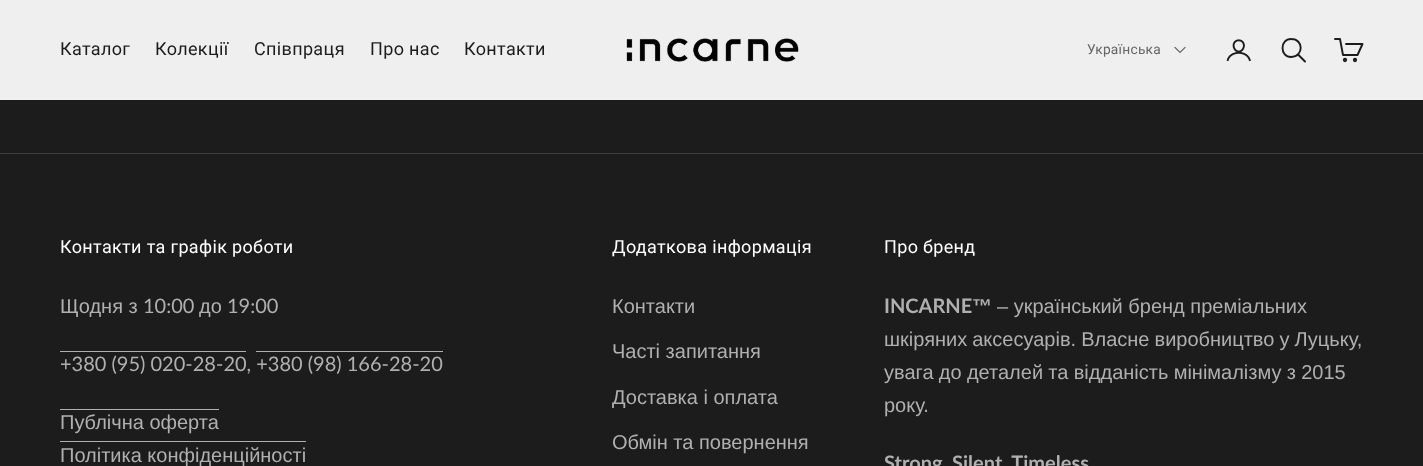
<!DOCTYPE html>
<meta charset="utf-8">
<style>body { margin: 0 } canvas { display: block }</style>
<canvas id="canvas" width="1423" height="466"></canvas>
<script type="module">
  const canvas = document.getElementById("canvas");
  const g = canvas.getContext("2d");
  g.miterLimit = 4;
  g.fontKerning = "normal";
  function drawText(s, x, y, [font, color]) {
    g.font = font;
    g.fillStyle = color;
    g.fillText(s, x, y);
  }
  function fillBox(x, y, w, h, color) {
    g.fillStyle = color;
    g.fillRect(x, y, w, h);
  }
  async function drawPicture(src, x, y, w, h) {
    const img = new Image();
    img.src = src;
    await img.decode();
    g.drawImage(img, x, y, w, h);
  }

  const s1 = ["18px Roboto", "#1C1C1C"];
  const s2 = ["13.75px Roboto", "#666666"];
  const s3 = ["18px Roboto", "#FFFFFF"];
  const s4 = ["20px Liberation Sans", "#B0B0B0"];
  const s5 = ["20px Lato", "#B0B0B0"];
  const s6 = ["bold 20px Lato", "#B0B0B0"];
  const s7 = ["bold 20px Liberation Sans", "#B0B0B0"];

  fillBox(0, 0, 1423, 466, "#1C1C1C");
  fillBox(0, 0, 1423, 100, "#EFEFEF");
  g.letterSpacing = "0.35px";
  drawText("Каталог", 60, 55, s1);
  drawText("Колекції", 155, 55, s1);
  drawText("Співпраця", 254, 55, s1);
  drawText("Про нас", 370, 55, s1);
  drawText("Контакти", 464, 55, s1);
  await drawPicture("pic1.png", 626, 38, 173, 24);
  g.letterSpacing = "0.25px";
  drawText("Українська", 1087, 54, s2);
  g.beginPath();
  g.moveTo(1175, 47.5);
  g.lineTo(1180, 52.5);
  g.lineTo(1185, 47.5);
  g.strokeStyle = "#666666";
  g.lineWidth = 1.2;
  g.lineCap = "square";
  g.stroke();
  await drawPicture("pic2.png", 1226, 39, 25, 23);
  g.beginPath();
  g.moveTo(1291.5, 39);
  g.bezierCurveTo(1279.5, 38.5, 1279.5, 57.5, 1291.5, 57);
  g.bezierCurveTo(1304, 56.5, 1303.5, 39, 1291.5, 39);
  g.closePath();
  g.strokeStyle = "#1C1C1C";
  g.lineWidth = 1.9;
  g.lineCap = "butt";
  g.stroke();
  g.beginPath();
  g.moveTo(1298.5, 55);
  g.lineTo(1305, 61.5);
  g.lineCap = "round";
  g.stroke();
  g.beginPath();
  g.moveTo(1346, 44);
  g.lineTo(1362.5, 44);
  g.lineTo(1357.5, 55);
  g.lineTo(1343, 55);
  g.lineTo(1340, 39);
  g.lineTo(1335, 39);
  g.lineJoin = "round";
  g.stroke();
  g.beginPath();
  g.arc(1345, 60, 1.2, 0, Math.PI * 2);
  g.stroke();
  g.beginPath();
  g.arc(1355, 60, 1.2, 0, Math.PI * 2);
  g.stroke();
  fillBox(0, 153, 1423, 1, "#3E3E3E");
  g.letterSpacing = "0.35px";
  drawText("Контакти та графік роботи", 60, 253, s3);
  g.letterSpacing = "0px";
  drawText("Щодня з", 60, 313, s4);
  drawText("10:00", 143, 313, s5);
  drawText("до", 199, 313, s4);
  drawText("19:00", 227, 313, s5);
  fillBox(256, 351, 187, 1, "#B0B0B0");
  drawText("+380 (95) 020-28-20, +380 (98) 166-28-20", 60, 371, s5);
  fillBox(60, 351, 186, 1, "#B0B0B0");
  drawText("Публічна оферта", 60, 429, s4);
  fillBox(60, 409, 159, 1, "#B0B0B0");
  drawText("Політика конфіденційності", 60, 462, s4);
  fillBox(60, 441, 246, 1, "#B0B0B0");
  g.letterSpacing = "0.35px";
  drawText("Додаткова інформація", 612, 253, s3);
  g.letterSpacing = "0px";
  drawText("Контакти", 612, 313, s4);
  drawText("Часті запитання", 612, 358, s4);
  drawText("Доставка і оплата", 612, 404, s4);
  drawText("Обмін та повернення", 612, 449, s4);
  g.letterSpacing = "0.35px";
  drawText("Про бренд", 884, 253, s3);
  g.letterSpacing = "0px";
  drawText("INCARNE", 884, 313, s6);
  drawText("™", 972, 313, s7);
  drawText("– український бренд преміальних", 997, 313, s4);
  g.wordSpacing = "-0.5px";
  drawText("шкіряних аксесуарів. Власне виробництво у Луцьку,", 884, 346, s4);
  g.wordSpacing = "-0.25px";
  drawText("увага до деталей та відданість мінімалізму з 2015", 884, 379, s4);
  g.wordSpacing = "0px";
  drawText("року.", 884, 412, s4);
  drawText("Strong. Silent. Timeless", 884, 470, s6);
</script>
